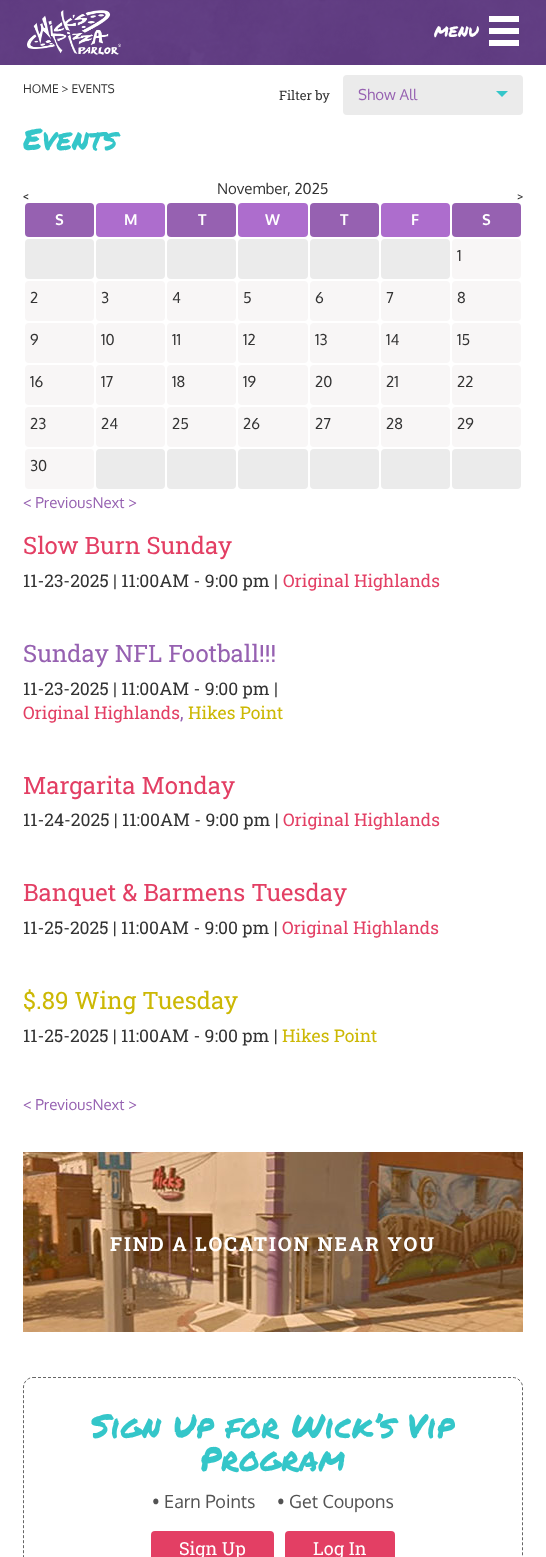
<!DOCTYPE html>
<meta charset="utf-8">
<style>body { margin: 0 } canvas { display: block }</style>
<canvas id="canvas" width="546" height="1557"></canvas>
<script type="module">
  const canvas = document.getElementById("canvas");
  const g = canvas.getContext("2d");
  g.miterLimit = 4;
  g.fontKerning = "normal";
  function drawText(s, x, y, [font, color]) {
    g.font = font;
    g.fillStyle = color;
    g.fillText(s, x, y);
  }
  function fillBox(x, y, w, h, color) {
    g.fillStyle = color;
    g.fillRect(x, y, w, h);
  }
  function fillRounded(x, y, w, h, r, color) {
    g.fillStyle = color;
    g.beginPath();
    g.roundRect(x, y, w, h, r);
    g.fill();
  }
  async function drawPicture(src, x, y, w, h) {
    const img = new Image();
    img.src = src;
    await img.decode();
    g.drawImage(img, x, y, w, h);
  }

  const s1 = ["15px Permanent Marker", "#FFFFFF"];
  const s2 = ["12px Oxygen", "#333333"];
  const s3 = ["13px Roboto Slab", "#333333"];
  const s4 = ["15px Oxygen", "#9661B1"];
  const s5 = ["30px Permanent Marker", "#34C6C9"];
  const s6 = ["12px Roboto Slab", "#333333"];
  const s7 = ["15px Oxygen", "#333333"];
  const s8 = ["bold 15px Oxygen", "#FFFFFF"];
  const s9 = ["24px Roboto Slab", "#E33F64"];
  const s10 = ["17.5px Roboto Slab", "#333333"];
  const s11 = ["17.5px Roboto Slab", "#E33F64"];
  const s12 = ["24px Roboto Slab", "#9661B1"];
  const s13 = ["17.5px Roboto Slab", "#9661B1"];
  const s14 = ["17.5px Roboto Slab", "#CCB804"];
  const s15 = ["24px Roboto Slab", "#CCB804"];
  const s16 = ["bold 19.5px Roboto Slab", "#FFFFFF"];
  const s17 = ["33px Permanent Marker", "#34C6C9"];
  const s18 = ["18px Oxygen", "#535353"];
  const s19 = ["18px Roboto Slab", "#FFFFFF"];

  fillBox(0, 0, 546, 1557, "#FFFFFF");
  fillBox(0, 0, 546, 65, "#664388");
  await drawPicture("pic1.png", 0, 0, 546, 65);
  await drawPicture("pic2.png", 27, 10, 94, 45);
  drawText("MENU", 434, 37, s1);
  fillBox(489, 16, 30, 6, "#FFFFFF");
  fillBox(489, 28, 30, 6, "#FFFFFF");
  fillBox(489, 40, 30, 6, "#FFFFFF");
  drawText("HOME > EVENTS", 23, 93, s2);
  drawText("Filter by", 279, 100, s3);
  fillRounded(343, 75, 180, 40, 4, "#EBEBEB");
  drawText("Show All", 358, 100, s4);
  g.fillStyle = "#34C6C9";
  g.beginPath();
  g.moveTo(496, 91);
  g.lineTo(508, 91);
  g.lineTo(502, 97);
  g.closePath();
  g.fill();
  drawText("Events", 23, 150, s5);
  drawText("<", 23, 200, s6);
  drawText("November, 2025", 217, 194, s7);
  drawText(">", 517, 200, s6);
  fillRounded(25, 203, 69, 34, 4, "#9661B1");
  drawText("S", 55, 225, s8);
  fillRounded(96, 203, 69, 34, 4, "#AD6DCD");
  drawText("M", 124, 225, s8);
  fillRounded(167, 203, 69, 34, 4, "#9661B1");
  drawText("T", 198, 225, s8);
  fillRounded(238, 203, 70, 34, 4, "#AD6DCD");
  drawText("W", 265, 225, s8);
  fillRounded(310, 203, 69, 34, 4, "#9661B1");
  drawText("T", 340, 225, s8);
  fillRounded(381, 203, 69, 34, 4, "#AD6DCD");
  drawText("F", 411, 225, s8);
  fillRounded(452, 203, 69, 34, 4, "#9661B1");
  drawText("S", 482, 225, s8);
  fillRounded(25, 239, 69, 40, 4, "#EBEBEB");
  fillRounded(96, 239, 69, 40, 4, "#EBEBEB");
  fillRounded(167, 239, 69, 40, 4, "#EBEBEB");
  fillRounded(238, 239, 70, 40, 4, "#EBEBEB");
  fillRounded(310, 239, 69, 40, 4, "#EBEBEB");
  fillRounded(381, 239, 69, 40, 4, "#EBEBEB");
  fillRounded(452, 239, 69, 40, 4, "#F8F6F6");
  drawText("1", 457, 261, s7);
  fillRounded(25, 281, 69, 40, 4, "#F8F6F6");
  drawText("2", 30, 303, s7);
  fillRounded(96, 281, 69, 40, 4, "#F8F6F6");
  drawText("3", 101, 303, s7);
  fillRounded(167, 281, 69, 40, 4, "#F8F6F6");
  drawText("4", 172, 303, s7);
  fillRounded(238, 281, 70, 40, 4, "#F8F6F6");
  drawText("5", 243, 303, s7);
  fillRounded(310, 281, 69, 40, 4, "#F8F6F6");
  drawText("6", 315, 303, s7);
  fillRounded(381, 281, 69, 40, 4, "#F8F6F6");
  drawText("7", 386, 303, s7);
  fillRounded(452, 281, 69, 40, 4, "#F8F6F6");
  drawText("8", 457, 303, s7);
  fillRounded(25, 323, 69, 40, 4, "#F8F6F6");
  drawText("9", 30, 345, s7);
  fillRounded(96, 323, 69, 40, 4, "#F8F6F6");
  drawText("10", 101, 345, s7);
  fillRounded(167, 323, 69, 40, 4, "#F8F6F6");
  drawText("11", 172, 345, s7);
  fillRounded(238, 323, 70, 40, 4, "#F8F6F6");
  drawText("12", 243, 345, s7);
  fillRounded(310, 323, 69, 40, 4, "#F8F6F6");
  drawText("13", 315, 345, s7);
  fillRounded(381, 323, 69, 40, 4, "#F8F6F6");
  drawText("14", 386, 345, s7);
  fillRounded(452, 323, 69, 40, 4, "#F8F6F6");
  drawText("15", 457, 345, s7);
  fillRounded(25, 365, 69, 40, 4, "#F8F6F6");
  drawText("16", 30, 387, s7);
  fillRounded(96, 365, 69, 40, 4, "#F8F6F6");
  drawText("17", 101, 387, s7);
  fillRounded(167, 365, 69, 40, 4, "#F8F6F6");
  drawText("18", 172, 387, s7);
  fillRounded(238, 365, 70, 40, 4, "#F8F6F6");
  drawText("19", 243, 387, s7);
  fillRounded(310, 365, 69, 40, 4, "#F8F6F6");
  drawText("20", 315, 387, s7);
  fillRounded(381, 365, 69, 40, 4, "#F8F6F6");
  drawText("21", 386, 387, s7);
  fillRounded(452, 365, 69, 40, 4, "#F8F6F6");
  drawText("22", 457, 387, s7);
  fillRounded(25, 407, 69, 40, 4, "#F8F6F6");
  drawText("23", 30, 429, s7);
  fillRounded(96, 407, 69, 40, 4, "#F8F6F6");
  drawText("24", 101, 429, s7);
  fillRounded(167, 407, 69, 40, 4, "#F8F6F6");
  drawText("25", 172, 429, s7);
  fillRounded(238, 407, 70, 40, 4, "#F8F6F6");
  drawText("26", 243, 429, s7);
  fillRounded(310, 407, 69, 40, 4, "#F8F6F6");
  drawText("27", 315, 429, s7);
  fillRounded(381, 407, 69, 40, 4, "#F8F6F6");
  drawText("28", 386, 429, s7);
  fillRounded(452, 407, 69, 40, 4, "#F8F6F6");
  drawText("29", 457, 429, s7);
  fillRounded(25, 449, 69, 40, 4, "#F8F6F6");
  drawText("30", 30, 471, s7);
  fillRounded(96, 449, 69, 40, 4, "#EBEBEB");
  fillRounded(167, 449, 69, 40, 4, "#EBEBEB");
  fillRounded(238, 449, 70, 40, 4, "#EBEBEB");
  fillRounded(310, 449, 69, 40, 4, "#EBEBEB");
  fillRounded(381, 449, 69, 40, 4, "#EBEBEB");
  fillRounded(452, 449, 69, 40, 4, "#EBEBEB");
  drawText("< PreviousNext >", 23, 508, s4);
  drawText("Slow Burn Sunday", 23, 554, s9);
  drawText("11-23-2025 | 11:00AM - 9:00 pm |", 23, 587, s10);
  drawText("Original Highlands", 283, 587, s11);
  drawText("Sunday NFL Football!!!", 23, 662, s12);
  drawText("11-23-2025 | 11:00AM - 9:00 pm |", 23, 695, s10);
  drawText("Original Highlands", 23, 719, s11);
  drawText(",", 180, 719, s13);
  drawText("Hikes Point", 188, 719, s14);
  drawText("Margarita Monday", 23, 794, s9);
  drawText("11-24-2025 | 11:00AM - 9:00 pm |", 23, 826, s10);
  drawText("Original Highlands", 283, 826, s11);
  drawText("Banquet & Barmens Tuesday", 23, 901, s9);
  drawText("11-25-2025 | 11:00AM - 9:00 pm |", 23, 934, s10);
  drawText("Original Highlands", 282, 934, s11);
  drawText("$.89 Wing Tuesday", 23, 1009, s15);
  drawText("11-25-2025 | 11:00AM - 9:00 pm |", 23, 1042, s10);
  drawText("Hikes Point", 282, 1042, s14);
  drawText("< PreviousNext >", 23, 1110, s4);
  await drawPicture("pic3.png", 23, 1152, 500, 180);
  g.letterSpacing = "1.95px";
  drawText("FIND A LOCATION NEAR YOU", 110, 1251, s16);
  g.beginPath();
  g.moveTo(33, 1377.5);
  g.lineTo(513, 1377.5);
  g.bezierCurveTo(518, 1377.5, 522.5, 1382, 522.5, 1387);
  g.lineTo(522.5, 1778);
  g.bezierCurveTo(522.5, 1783, 518, 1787.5, 513, 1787.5);
  g.lineTo(33, 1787.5);
  g.bezierCurveTo(28, 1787.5, 23.5, 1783, 23.5, 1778);
  g.lineTo(23.5, 1387);
  g.bezierCurveTo(23.5, 1382, 28, 1377.5, 33, 1377.5);
  g.closePath();
  g.strokeStyle = "#666666";
  g.setLineDash([3, 2]);
  g.stroke();
  g.letterSpacing = "0px";
  drawText("Sign Up for Wick’s Vip", 91, 1438, s17);
  drawText("Program", 200, 1471, s17);
  drawText("• Earn Points", 152, 1508, s18);
  drawText("• Get Coupons", 277, 1508, s18);
  fillRounded(151, 1531, 123, 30, 4, "#E33F64");
  drawText("Sign Up", 179, 1555, s19);
  fillRounded(285, 1531, 110, 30, 4, "#E33F64");
  drawText("Log In", 313, 1555, s19);
</script>
